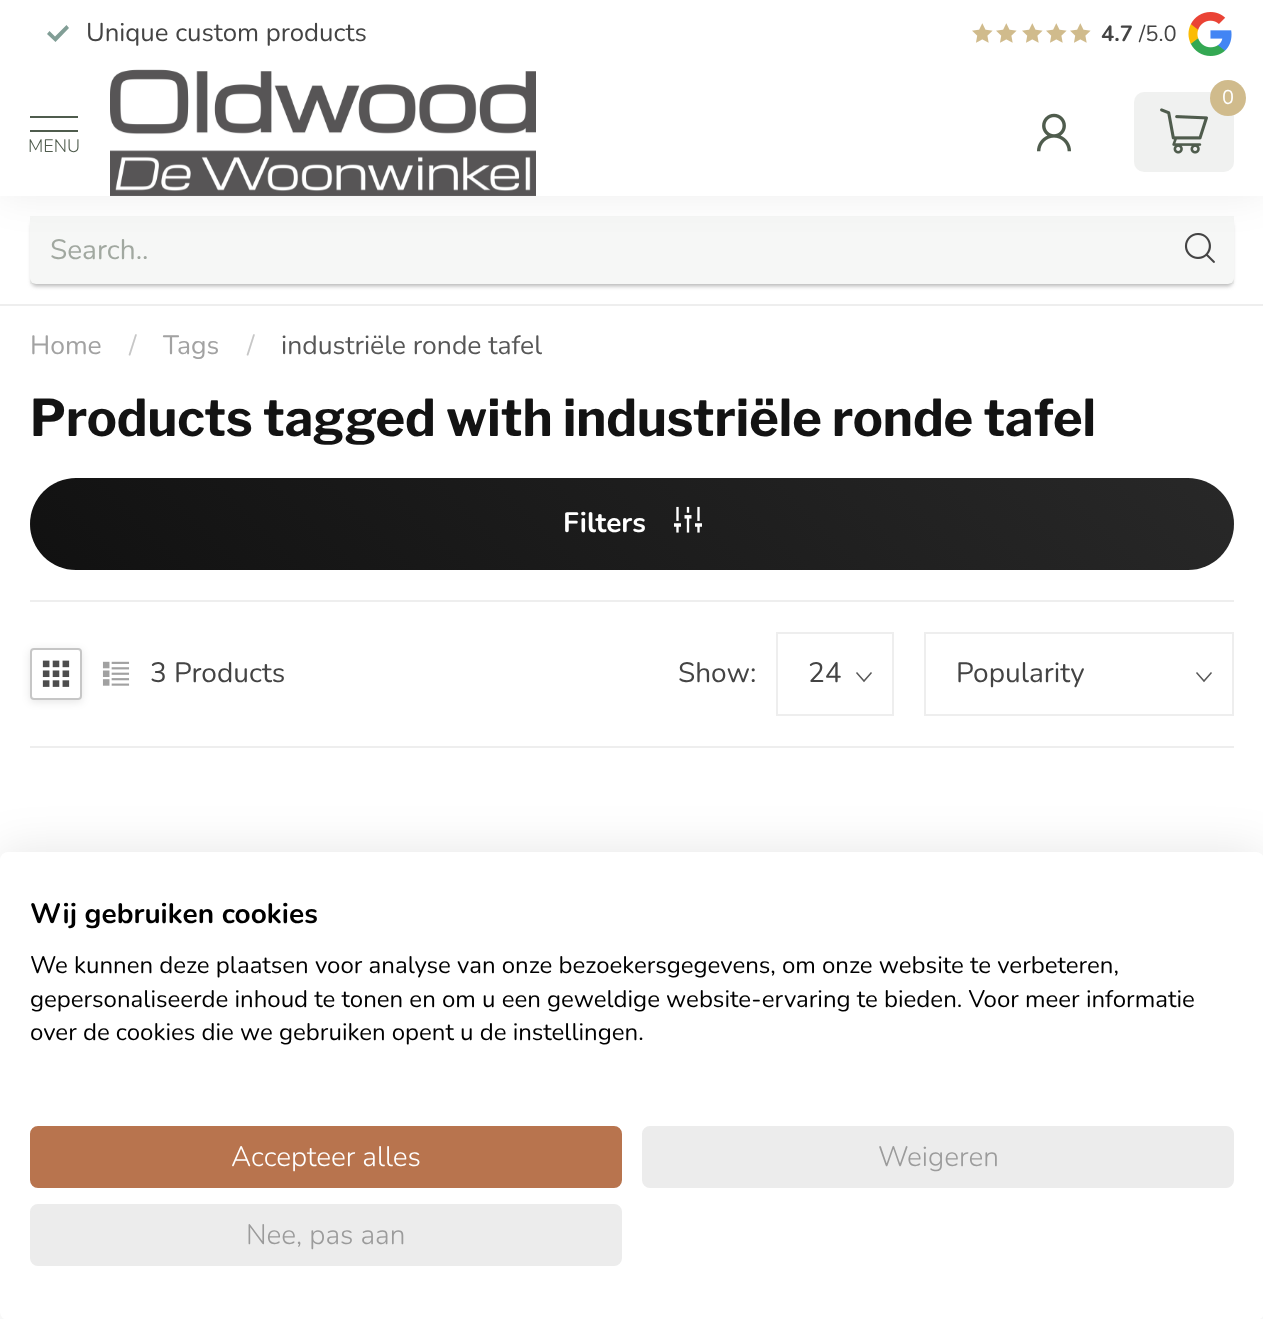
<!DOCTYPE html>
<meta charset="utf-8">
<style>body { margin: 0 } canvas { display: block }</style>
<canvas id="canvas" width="1263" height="1319"></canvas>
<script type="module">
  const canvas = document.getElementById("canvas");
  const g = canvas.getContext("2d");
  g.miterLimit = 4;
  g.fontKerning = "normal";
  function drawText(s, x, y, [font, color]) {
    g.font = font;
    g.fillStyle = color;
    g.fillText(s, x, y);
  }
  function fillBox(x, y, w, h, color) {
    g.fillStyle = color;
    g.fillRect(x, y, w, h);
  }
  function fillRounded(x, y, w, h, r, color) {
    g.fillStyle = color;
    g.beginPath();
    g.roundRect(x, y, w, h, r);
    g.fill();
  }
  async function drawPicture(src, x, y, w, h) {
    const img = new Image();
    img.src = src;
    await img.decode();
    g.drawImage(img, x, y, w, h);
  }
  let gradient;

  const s1 = ["25.75px Nunito", "#444444"];
  const s2 = ["bold 22px Nunito", "#444444"];
  const s3 = ["22px Nunito", "#444444"];
  const s4 = ["20px Nunito", "#FFFFFF"];
  const s5 = ["300 18px Nunito", "#4F5C4D"];
  const s6 = ["28px Nunito", "#A1A8A0"];
  const s7 = ["26.5px Nunito", "#A2A2A2"];
  const s8 = ["26.5px Nunito", "#C7C7C7"];
  const s9 = ["26.5px Nunito", "#575757"];
  const s10 = ["bold 50.4px Libre Franklin", "#131313"];
  const s11 = ["bold 28px Nunito", "#FFFFFF"];
  const s12 = ["28px Nunito", "#444444"];
  const s13 = ["bold 28px Nunito", "#000000"];
  const s14 = ["24px Nunito", "#000000"];
  const s15 = ["300 28px Nunito", "#FFFFFF"];
  const s16 = ["300 28px Nunito", "#9B9B9B"];

  fillBox(0, 0, 1263, 1319, "#FFFFFF");
  g.fillStyle = "rgba(155, 155, 155, 0.75)";
  g.filter = "blur(2px)";
  g.beginPath();
  g.roundRect(32, 222, 1200, 64, 4);
  g.fill();
  g.filter = "none";
  fillRounded(30, 216, 1204, 68, 6, "#FFFFFF");
  fillBox(30, 216, 1204, 68, "rgba(79, 92, 77, 0.05)");
  await drawPicture("pic6.png", 1184, 233, 31, 30);
  g.fillStyle = "rgba(0, 0, 0, 0.07)";
  g.filter = "blur(20px)";
  g.beginPath();
  g.rect(0, 0, 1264, 196);
  g.fill();
  g.filter = "none";
  fillBox(0, 0, 1263, 196, "#FFFFFF");
  g.fillStyle = "#819E96";
  g.beginPath();
  g.moveTo(55.5, 42);
  g.lineTo(47, 34);
  g.lineTo(49.5, 31);
  g.lineTo(55, 36.5);
  g.lineTo(66.5, 25);
  g.lineTo(69, 28);
  g.closePath();
  g.fill();
  drawText("Unique custom products", 86, 41, s1);
  await drawPicture("pic1.png", 972, 23, 21, 20);
  await drawPicture("pic1.png", 996, 23, 21, 20);
  await drawPicture("pic1.png", 1022, 23, 21, 20);
  await drawPicture("pic1.png", 1046, 23, 21, 20);
  await drawPicture("pic1.png", 1070, 23, 21, 20);
  drawText("4.7", 1101, 41, s2);
  drawText("/5.0", 1139, 41, s3);
  await drawPicture("pic2.png", 1188, 12, 44, 44);
  fillRounded(1134, 92, 100, 80, 10, "rgba(149, 157, 148, 0.14)");
  g.fillStyle = "#D0BB8C";
  g.beginPath();
  g.arc(1228, 98, 18, 0, Math.PI * 2);
  g.fill();
  drawText("0", 1222, 104, s4);
  await drawPicture("pic3.png", 1160, 108, 48, 46);
  await drawPicture("pic4.png", 1037, 113, 34, 39);
  fillBox(30, 116, 48, 2, "#4F5C4D");
  fillBox(30, 130, 48, 2, "#4F5C4D");
  drawText("MENU", 28, 152, s5);
  await drawPicture("pic5.png", 110, 68, 426, 128);
  fillBox(0, 304, 1263, 2, "#EEEEEE");
  drawText("Search..", 50, 259, s6);
  drawText("Home", 30, 354, s7);
  drawText("/", 129, 354, s8);
  drawText("Tags", 163, 354, s7);
  drawText("/", 247, 354, s8);
  drawText("industriële ronde tafel", 281, 354, s9);
  drawText("Products tagged with industriële ronde tafel", 30, 436, s10);
  gradient = g.createLinearGradient(308, 848, 956, 200);
  gradient.addColorStop(0, "#111111");
  gradient.addColorStop(1, "#282828");
  g.fillStyle = gradient;
  g.beginPath();
  g.roundRect(30, 478, 1204, 92, 46);
  g.fill();
  drawText("Filters", 563, 532, s11);
  await drawPicture("pic7.png", 674, 506, 28, 27);
  fillBox(30, 600, 1204, 2, "#EEEEEE");
  fillBox(30, 746, 1204, 2, "#EEEEEE");
  g.save();
  g.beginPath();
  g.moveTo(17, 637);
  g.lineTo(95, 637);
  g.lineTo(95, 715);
  g.lineTo(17, 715);
  g.closePath();
  g.moveTo(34, 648);
  g.lineTo(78, 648);
  g.bezierCurveTo(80, 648, 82, 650, 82, 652);
  g.lineTo(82, 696);
  g.bezierCurveTo(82, 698, 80, 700, 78, 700);
  g.lineTo(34, 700);
  g.bezierCurveTo(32, 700, 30, 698, 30, 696);
  g.lineTo(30, 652);
  g.bezierCurveTo(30, 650, 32, 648, 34, 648);
  g.closePath();
  g.clip("evenodd");
  g.fillStyle = "rgba(0, 0, 0, 0.1)";
  g.filter = "blur(4px)";
  g.beginPath();
  g.roundRect(30, 650, 52, 52, 4);
  g.fill();
  g.filter = "none";
  g.restore();
  g.beginPath();
  g.roundRect(31, 649, 50, 50, 3);
  g.strokeStyle = "#C6C6C6";
  g.lineWidth = 2;
  g.stroke();
  await drawPicture("pic8.png", 42, 660, 28, 27);
  await drawPicture("pic9.png", 102, 661, 28, 25);
  drawText("3 Products", 150, 682, s12);
  drawText("Show:", 678, 682, s12);
  g.beginPath();
  g.moveTo(871.5, 672.5);
  g.lineTo(864, 681);
  g.lineTo(856.5, 672.5);
  g.strokeStyle = "#595959";
  g.lineWidth = 1.5;
  g.stroke();
  g.strokeStyle = "#EEEEEE";
  g.lineWidth = 2;
  g.strokeRect(777, 633, 116, 82);
  drawText("24", 808, 682, s12);
  g.beginPath();
  g.moveTo(1211.5, 672.5);
  g.lineTo(1204, 681);
  g.lineTo(1196.5, 672.5);
  g.strokeStyle = "#595959";
  g.lineWidth = 1.5;
  g.stroke();
  g.strokeStyle = "#EEEEEE";
  g.lineWidth = 2;
  g.strokeRect(925, 633, 308, 82);
  drawText("Popularity", 956, 682, s12);
  g.fillStyle = "rgba(0, 0, 0, 0.1)";
  g.filter = "blur(24px)";
  g.beginPath();
  g.roundRect(0, 852, 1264, 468, 8);
  g.fill();
  g.filter = "none";
  fillRounded(0, 852, 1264, 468, 8, "#FFFFFF");
  drawText("Wij gebruiken cookies", 30, 923, s13);
  drawText("We kunnen deze plaatsen voor analyse van onze bezoekersgegevens, om onze website te verbeteren,", 30, 973, s14);
  drawText("gepersonaliseerde inhoud te tonen en om u een geweldige website-ervaring te bieden. Voor meer informatie", 30, 1007, s14);
  drawText("over de cookies die we gebruiken opent u de instellingen.", 30, 1040, s14);
  g.fillStyle = "#B8744E";
  g.beginPath();
  g.roundRect(31, 1127, 590, 60, 7);
  g.fill();
  g.strokeStyle = "#B8744E";
  g.stroke();
  drawText("Accepteer alles", 231, 1166, s15);
  g.fillStyle = "#ECECEC";
  g.beginPath();
  g.roundRect(643, 1127, 590, 60, 7);
  g.fill();
  g.strokeStyle = "#ECECEC";
  g.stroke();
  drawText("Weigeren", 878, 1166, s16);
  g.fillStyle = "#ECECEC";
  g.beginPath();
  g.roundRect(31, 1205, 590, 60, 7);
  g.fill();
  g.stroke();
  drawText("Nee, pas aan", 246, 1244, s16);
</script>
